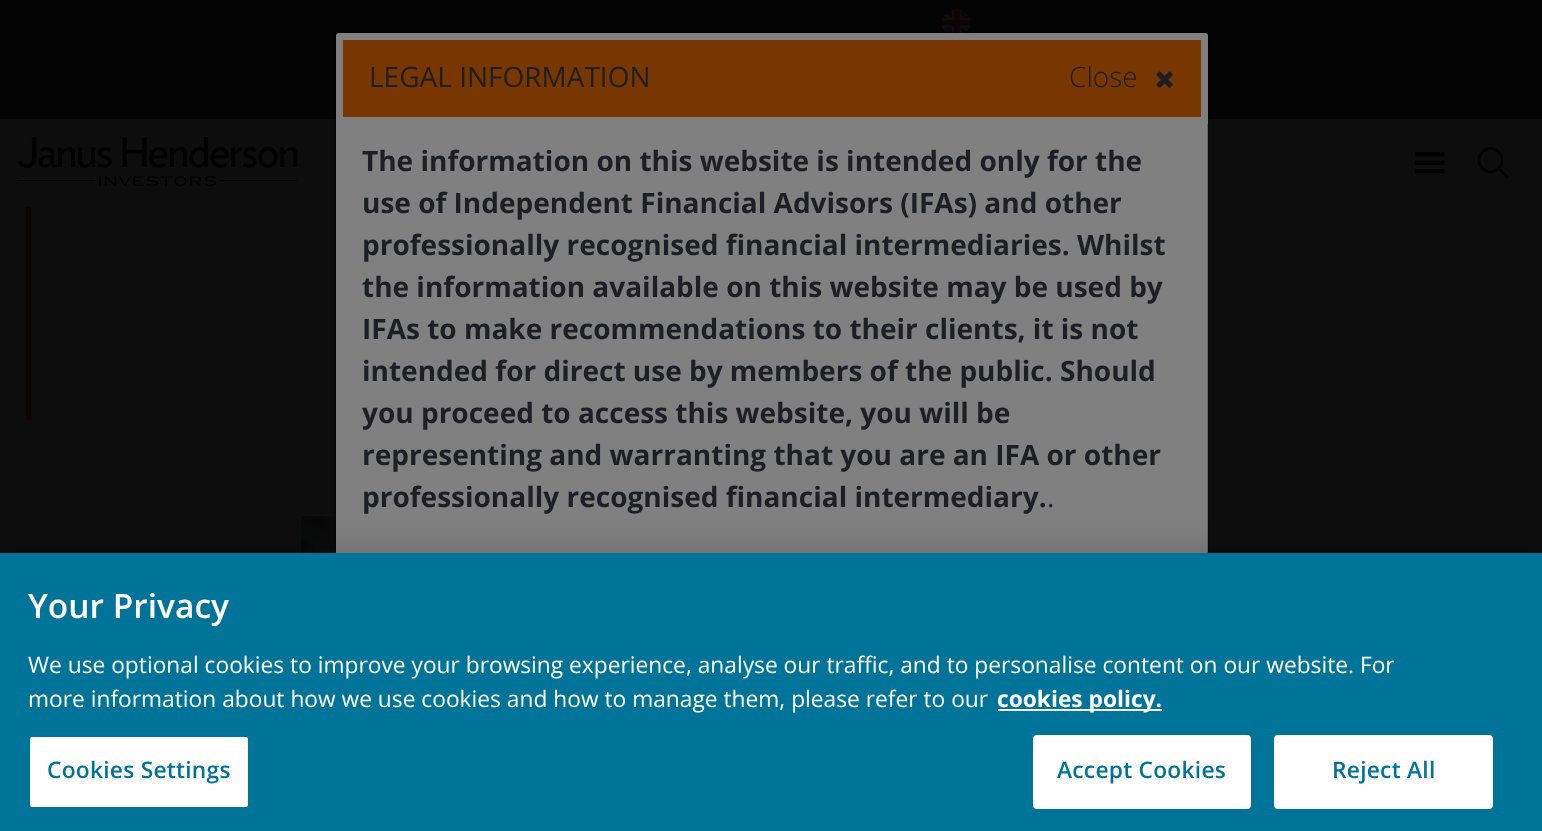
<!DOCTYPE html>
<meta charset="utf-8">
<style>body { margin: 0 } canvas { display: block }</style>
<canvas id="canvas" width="1542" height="831"></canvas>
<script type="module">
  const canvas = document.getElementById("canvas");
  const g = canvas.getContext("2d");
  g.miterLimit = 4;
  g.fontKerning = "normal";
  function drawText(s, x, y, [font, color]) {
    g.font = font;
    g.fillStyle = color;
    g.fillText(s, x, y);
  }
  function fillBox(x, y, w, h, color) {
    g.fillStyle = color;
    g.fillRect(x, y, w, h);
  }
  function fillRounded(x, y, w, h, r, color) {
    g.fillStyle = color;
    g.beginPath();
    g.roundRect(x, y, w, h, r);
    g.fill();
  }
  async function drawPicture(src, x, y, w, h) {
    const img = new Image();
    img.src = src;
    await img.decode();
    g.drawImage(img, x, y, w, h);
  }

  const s1 = ["28px Open Sans", "#1D1F24"];
  const s2 = ["300 28px Open Sans", "#1D1F24"];
  const s3 = ["bold 28px Open Sans", "#1D1F24"];
  const s4 = ["600 33.5px Open Sans", "#FFFFFF"];
  const s5 = ["22.75px Open Sans", "#FFFFFF"];
  const s6 = ["bold 22.75px Open Sans", "#FFFFFF"];
  const s7 = ["600 22.75px Open Sans", "#007398"];

  fillBox(0, 0, 1542, 831, "#0D0D0D");
  fillBox(0, 0, 1542, 119, "#030304");
  await drawPicture("pic1.png", 942, 9, 28, 24);
  await drawPicture("pic2.png", 18, 137, 280, 49);
  await drawPicture("pic3.png", 1415, 152, 30, 22);
  await drawPicture("pic4.png", 1477, 147, 33, 32);
  fillBox(26, 207, 5, 213, "#0C0600");
  await drawPicture("pic5.png", 301, 516, 35, 37);
  fillRounded(336, 33, 872, 786, 4, "#808080");
  g.beginPath();
  g.roundRect(335, 33, 873, 787, 4);
  g.strokeStyle = "rgba(0, 0, 0, 0.2)";
  g.lineWidth = 2;
  g.stroke();
  g.fillStyle = "#783600";
  g.beginPath();
  g.roundRect(339.5, 36.5, 865, 84, [0.5, 0.5, 0, 0]);
  g.fill();
  g.strokeStyle = "#808080";
  g.lineWidth = 7;
  g.stroke();
  drawText("LEGAL INFORMATION", 369, 87, s1);
  drawText("Close", 1069, 87, s2);
  await drawPicture("pic6.png", 1156, 71, 17, 17);
  drawText("The information on this website is intended only for the", 362, 171, s3);
  drawText("use of Independent Financial Advisors (IFAs) and other", 362, 213, s3);
  drawText("professionally recognised financial intermediaries. Whilst", 362, 255, s3);
  drawText("the information available on this website may be used by", 362, 297, s3);
  drawText("IFAs to make recommendations to their clients, it is not", 362, 339, s3);
  drawText("intended for direct use by members of the public. Should", 362, 381, s3);
  drawText("you proceed to access this website, you will be", 362, 423, s3);
  drawText("representing and warranting that you are an IFA or other", 362, 465, s3);
  drawText("professionally recognised financial intermediary.", 362, 507, s3);
  drawText(".", 1047, 507, s1);
  g.fillStyle = "rgba(0, 0, 0, 0.2)";
  g.filter = "blur(16px)";
  g.beginPath();
  g.rect(0, 553, 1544, 278);
  g.fill();
  g.filter = "none";
  fillBox(0, 553, 1542, 278, "#007398");
  drawText("Your Privacy", 28, 618, s4);
  drawText("We use optional cookies to improve your browsing experience, analyse our traffic, and to personalise content on our website. For", 28, 673, s5);
  drawText("more information about how we use cookies and how to manage them, please refer to our", 28, 707, s5);
  fillBox(998, 709, 164, 2, "#FFFFFF");
  drawText("cookies policy.", 997, 707, s6);
  g.beginPath();
  g.roundRect(29, 736, 220, 72, 3);
  g.fill();
  g.strokeStyle = "#007398";
  g.lineWidth = 2;
  g.stroke();
  g.letterSpacing = "0.25px";
  drawText("Cookies Settings", 47, 778, s7);
  g.fillStyle = "#FFFFFF";
  g.beginPath();
  g.roundRect(1034, 736, 216, 72, 3);
  g.fill();
  g.strokeStyle = "#FFFFFF";
  g.stroke();
  drawText("Accept Cookies", 1057, 778, s7);
  g.fillStyle = "#FFFFFF";
  g.beginPath();
  g.roundRect(1275, 736, 217, 72, 3);
  g.fill();
  g.stroke();
  drawText("Reject All", 1332, 778, s7);
</script>
